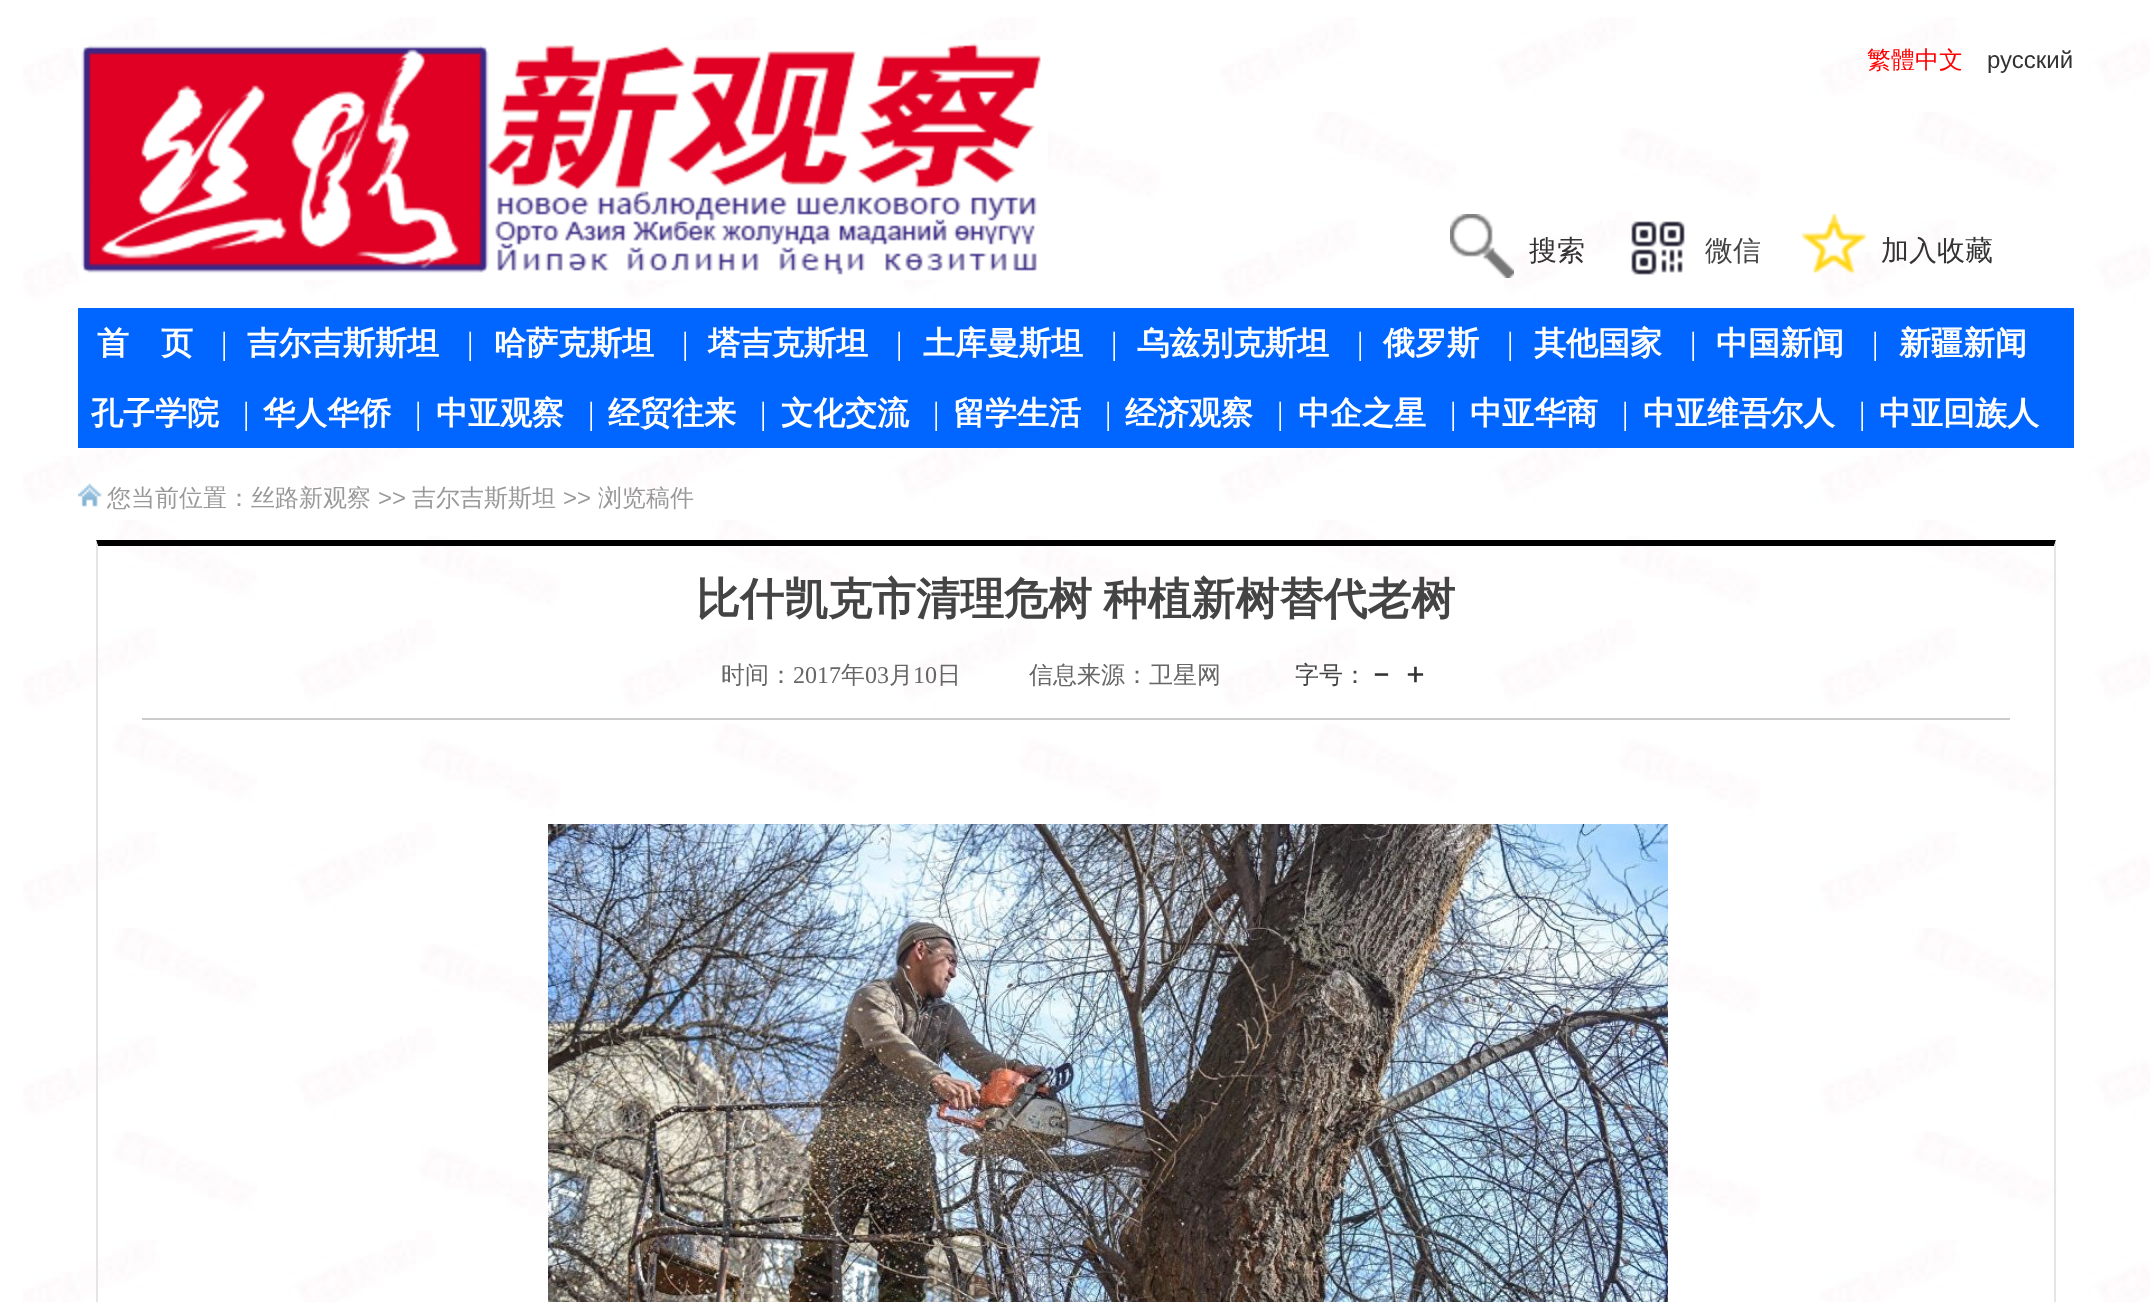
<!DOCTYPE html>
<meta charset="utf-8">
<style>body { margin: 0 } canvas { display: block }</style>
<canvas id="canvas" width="2150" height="1302"></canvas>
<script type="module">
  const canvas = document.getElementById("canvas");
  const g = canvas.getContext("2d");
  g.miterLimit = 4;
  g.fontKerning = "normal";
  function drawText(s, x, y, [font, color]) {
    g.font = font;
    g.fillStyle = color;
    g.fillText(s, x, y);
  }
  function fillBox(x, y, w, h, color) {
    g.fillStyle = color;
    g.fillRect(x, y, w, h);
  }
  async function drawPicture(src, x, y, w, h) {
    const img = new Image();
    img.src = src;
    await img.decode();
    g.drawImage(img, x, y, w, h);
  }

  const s1 = ["500 24px WenQuanYi Zen Hei", "#FF0000"];
  const s2 = ["24px Liberation Sans", "#333333"];
  const s3 = ["500 28px WenQuanYi Zen Hei", "#333333"];
  const s4 = ["500 28px WenQuanYi Zen Hei", "#444444"];
  const s5 = ["bold 32px WenQuanYi Zen Hei", "#FFFFFF"];
  const s6 = ["32px Liberation Serif", "#FFFFFF"];
  const s7 = ["500 24px WenQuanYi Zen Hei", "#999999"];
  const s8 = ["24px Liberation Sans", "#999999"];
  const s9 = ["bold 44px WenQuanYi Zen Hei", "#444444"];
  const s10 = ["500 24px WenQuanYi Zen Hei", "#666666"];
  const s11 = ["24px Liberation Serif", "#666666"];
  const s12 = ["500 24px WenQuanYi Zen Hei", "#444444"];
  const s13 = ["bold 28px WenQuanYi Zen Hei", "#333333"];

  fillBox(0, 0, 2150, 1302, "#FFFFFF");
  await drawPicture("pic1.png", 23, 17, 2127, 1285);
  await drawPicture("pic2.png", 78, 40, 970, 240);
  drawText("繁體中文", 1867, 68, s1);
  drawText("русский", 1987, 68, s2);
  await drawPicture("pic3.png", 1450, 214, 64, 64);
  drawText("搜索", 1529, 260, s3);
  await drawPicture("pic4.png", 1631, 221, 54, 54);
  drawText("微信", 1705, 260, s4);
  await drawPicture("pic5.png", 1802, 214, 64, 61);
  drawText("加入收藏", 1881, 260, s3);
  fillBox(78, 308, 1996, 140, "#0066FF");
  drawText("首　页", 97, 354, s5);
  drawText("|", 221, 354, s6);
  drawText("吉尔吉斯斯坦", 247, 354, s5);
  drawText("|", 467, 354, s6);
  drawText("哈萨克斯坦", 494, 354, s5);
  drawText("|", 682, 354, s6);
  drawText("塔吉克斯坦", 708, 354, s5);
  drawText("|", 896, 354, s6);
  drawText("土库曼斯坦", 923, 354, s5);
  drawText("|", 1111, 354, s6);
  drawText("乌兹别克斯坦", 1137, 354, s5);
  drawText("|", 1357, 354, s6);
  drawText("俄罗斯", 1383, 354, s5);
  drawText("|", 1507, 354, s6);
  drawText("其他国家", 1534, 354, s5);
  drawText("|", 1690, 354, s6);
  drawText("中国新闻", 1716, 354, s5);
  drawText("|", 1872, 354, s6);
  drawText("新疆新闻", 1899, 354, s5);
  drawText("孔子学院", 91, 424, s5);
  drawText("|", 243, 424, s6);
  drawText("华人华侨", 263, 424, s5);
  drawText("|", 415, 424, s6);
  drawText("中亚观察", 436, 424, s5);
  drawText("|", 588, 424, s6);
  drawText("经贸往来", 608, 424, s5);
  drawText("|", 760, 424, s6);
  drawText("文化交流", 781, 424, s5);
  drawText("|", 933, 424, s6);
  drawText("留学生活", 953, 424, s5);
  drawText("|", 1105, 424, s6);
  drawText("经济观察", 1125, 424, s5);
  drawText("|", 1277, 424, s6);
  drawText("中企之星", 1298, 424, s5);
  drawText("|", 1450, 424, s6);
  drawText("中亚华商", 1470, 424, s5);
  drawText("|", 1622, 424, s6);
  drawText("中亚维吾尔人", 1643, 424, s5);
  drawText("|", 1859, 424, s6);
  drawText("中亚回族人", 1879, 424, s5);
  await drawPicture("pic6.png", 78, 483, 24, 24);
  drawText("您当前位置：丝路新观察", 107, 506, s7);
  drawText(">>", 378, 506, s8);
  drawText("吉尔吉斯斯坦", 412, 506, s7);
  drawText(">>", 563, 506, s8);
  drawText("浏览稿件", 598, 506, s7);
  g.fillStyle = "#000000";
  g.beginPath();
  g.moveTo(96, 540);
  g.lineTo(2056, 540);
  g.lineTo(2054, 546);
  g.lineTo(98, 546);
  g.closePath();
  g.fill();
  g.fillStyle = "#E5E5E5";
  g.beginPath();
  g.moveTo(2056, 540);
  g.lineTo(2056, 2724);
  g.lineTo(2054, 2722);
  g.lineTo(2054, 546);
  g.closePath();
  g.fill();
  g.beginPath();
  g.moveTo(96, 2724);
  g.lineTo(96, 540);
  g.lineTo(98, 546);
  g.lineTo(98, 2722);
  g.closePath();
  g.fill();
  g.wordSpacing = "-2px";
  drawText("比什凯克市清理危树 种植新树替代老树", 696, 614, s9);
  fillBox(142, 718, 1868, 2, "#CCCCCC");
  g.wordSpacing = "0px";
  drawText("时间：", 721, 683, s10);
  drawText("2017", 793, 683, s11);
  drawText("年", 841, 683, s10);
  drawText("03", 865, 683, s11);
  drawText("月", 889, 683, s10);
  drawText("10", 913, 683, s11);
  drawText("日", 937, 683, s10);
  drawText("信息来源：卫星网", 1029, 683, s10);
  drawText("字号：", 1295, 683, s12);
  drawText("－", 1367, 683, s13);
  drawText("＋", 1401, 683, s13);
  await drawPicture("pic7.png", 548, 824, 1120, 478);
</script>
